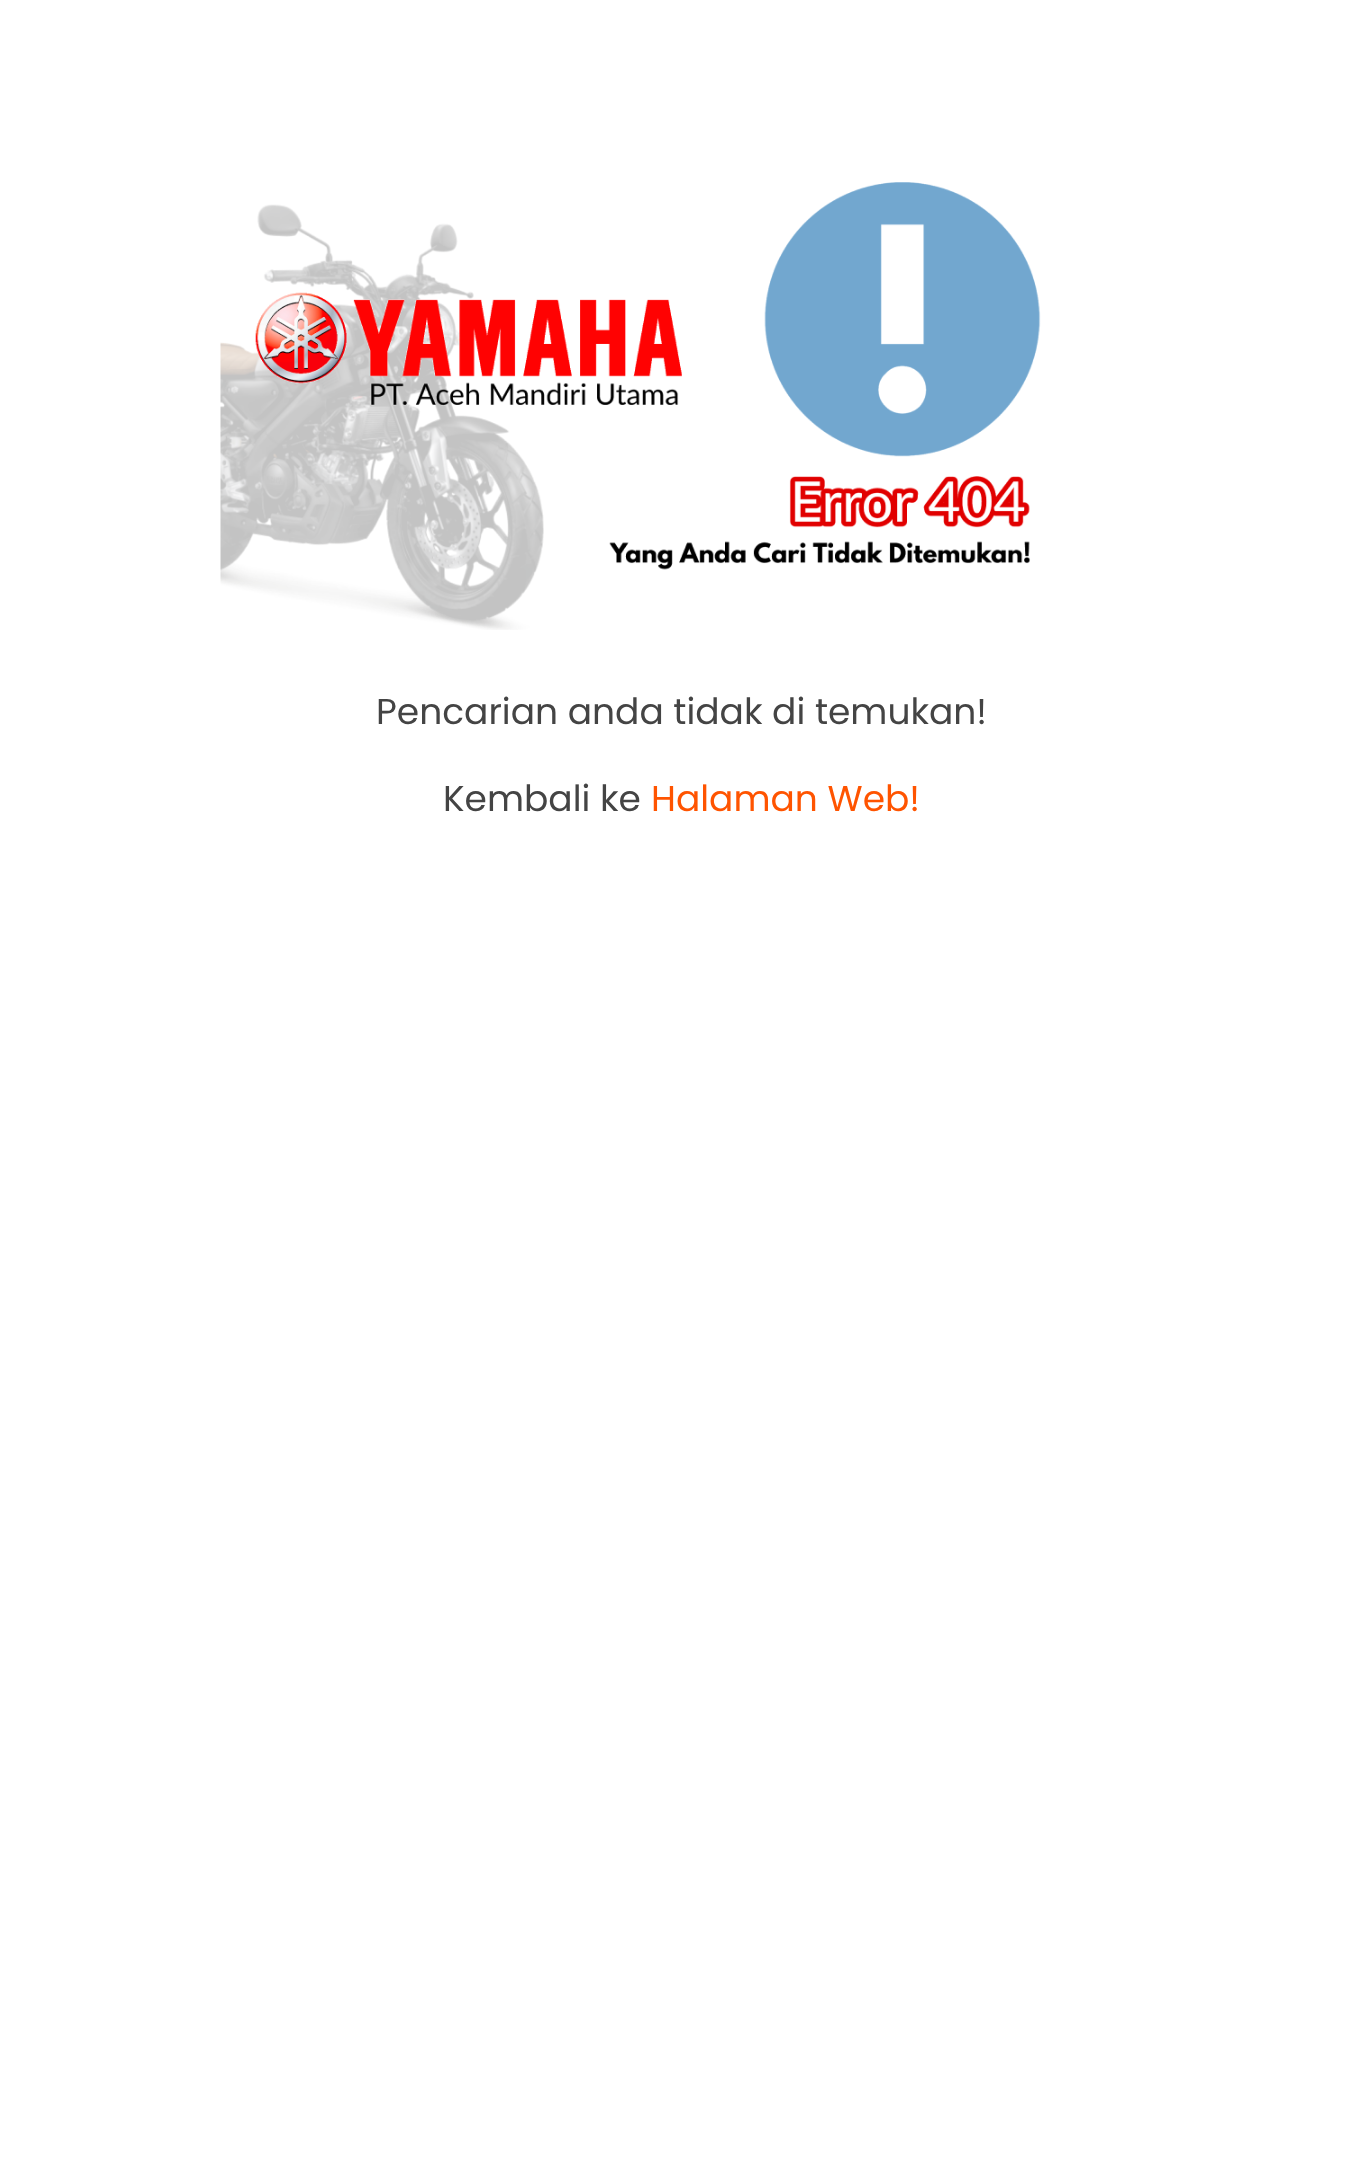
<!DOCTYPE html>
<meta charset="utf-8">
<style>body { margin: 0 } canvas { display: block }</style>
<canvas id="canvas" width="1362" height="2169"></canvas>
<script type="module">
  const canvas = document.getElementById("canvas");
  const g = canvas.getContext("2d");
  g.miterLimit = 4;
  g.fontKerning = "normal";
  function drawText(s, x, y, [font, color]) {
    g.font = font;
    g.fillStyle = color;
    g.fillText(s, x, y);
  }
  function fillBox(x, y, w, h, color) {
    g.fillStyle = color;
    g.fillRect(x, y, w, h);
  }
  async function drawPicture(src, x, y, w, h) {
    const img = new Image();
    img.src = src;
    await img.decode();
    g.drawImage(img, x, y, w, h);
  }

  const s1 = ["36px Poppins", "#444444"];
  const s2 = ["36px Poppins", "#FF5400"];

  fillBox(0, 0, 1362, 2169, "#FFFFFF");
  await drawPicture("pic1.png", 220, 182, 821, 448);
  drawText("Pencarian anda tidak di temukan!", 376, 724, s1);
  drawText("Kembali ke", 443, 811, s1);
  drawText("Halaman Web!", 651, 811, s2);
</script>
